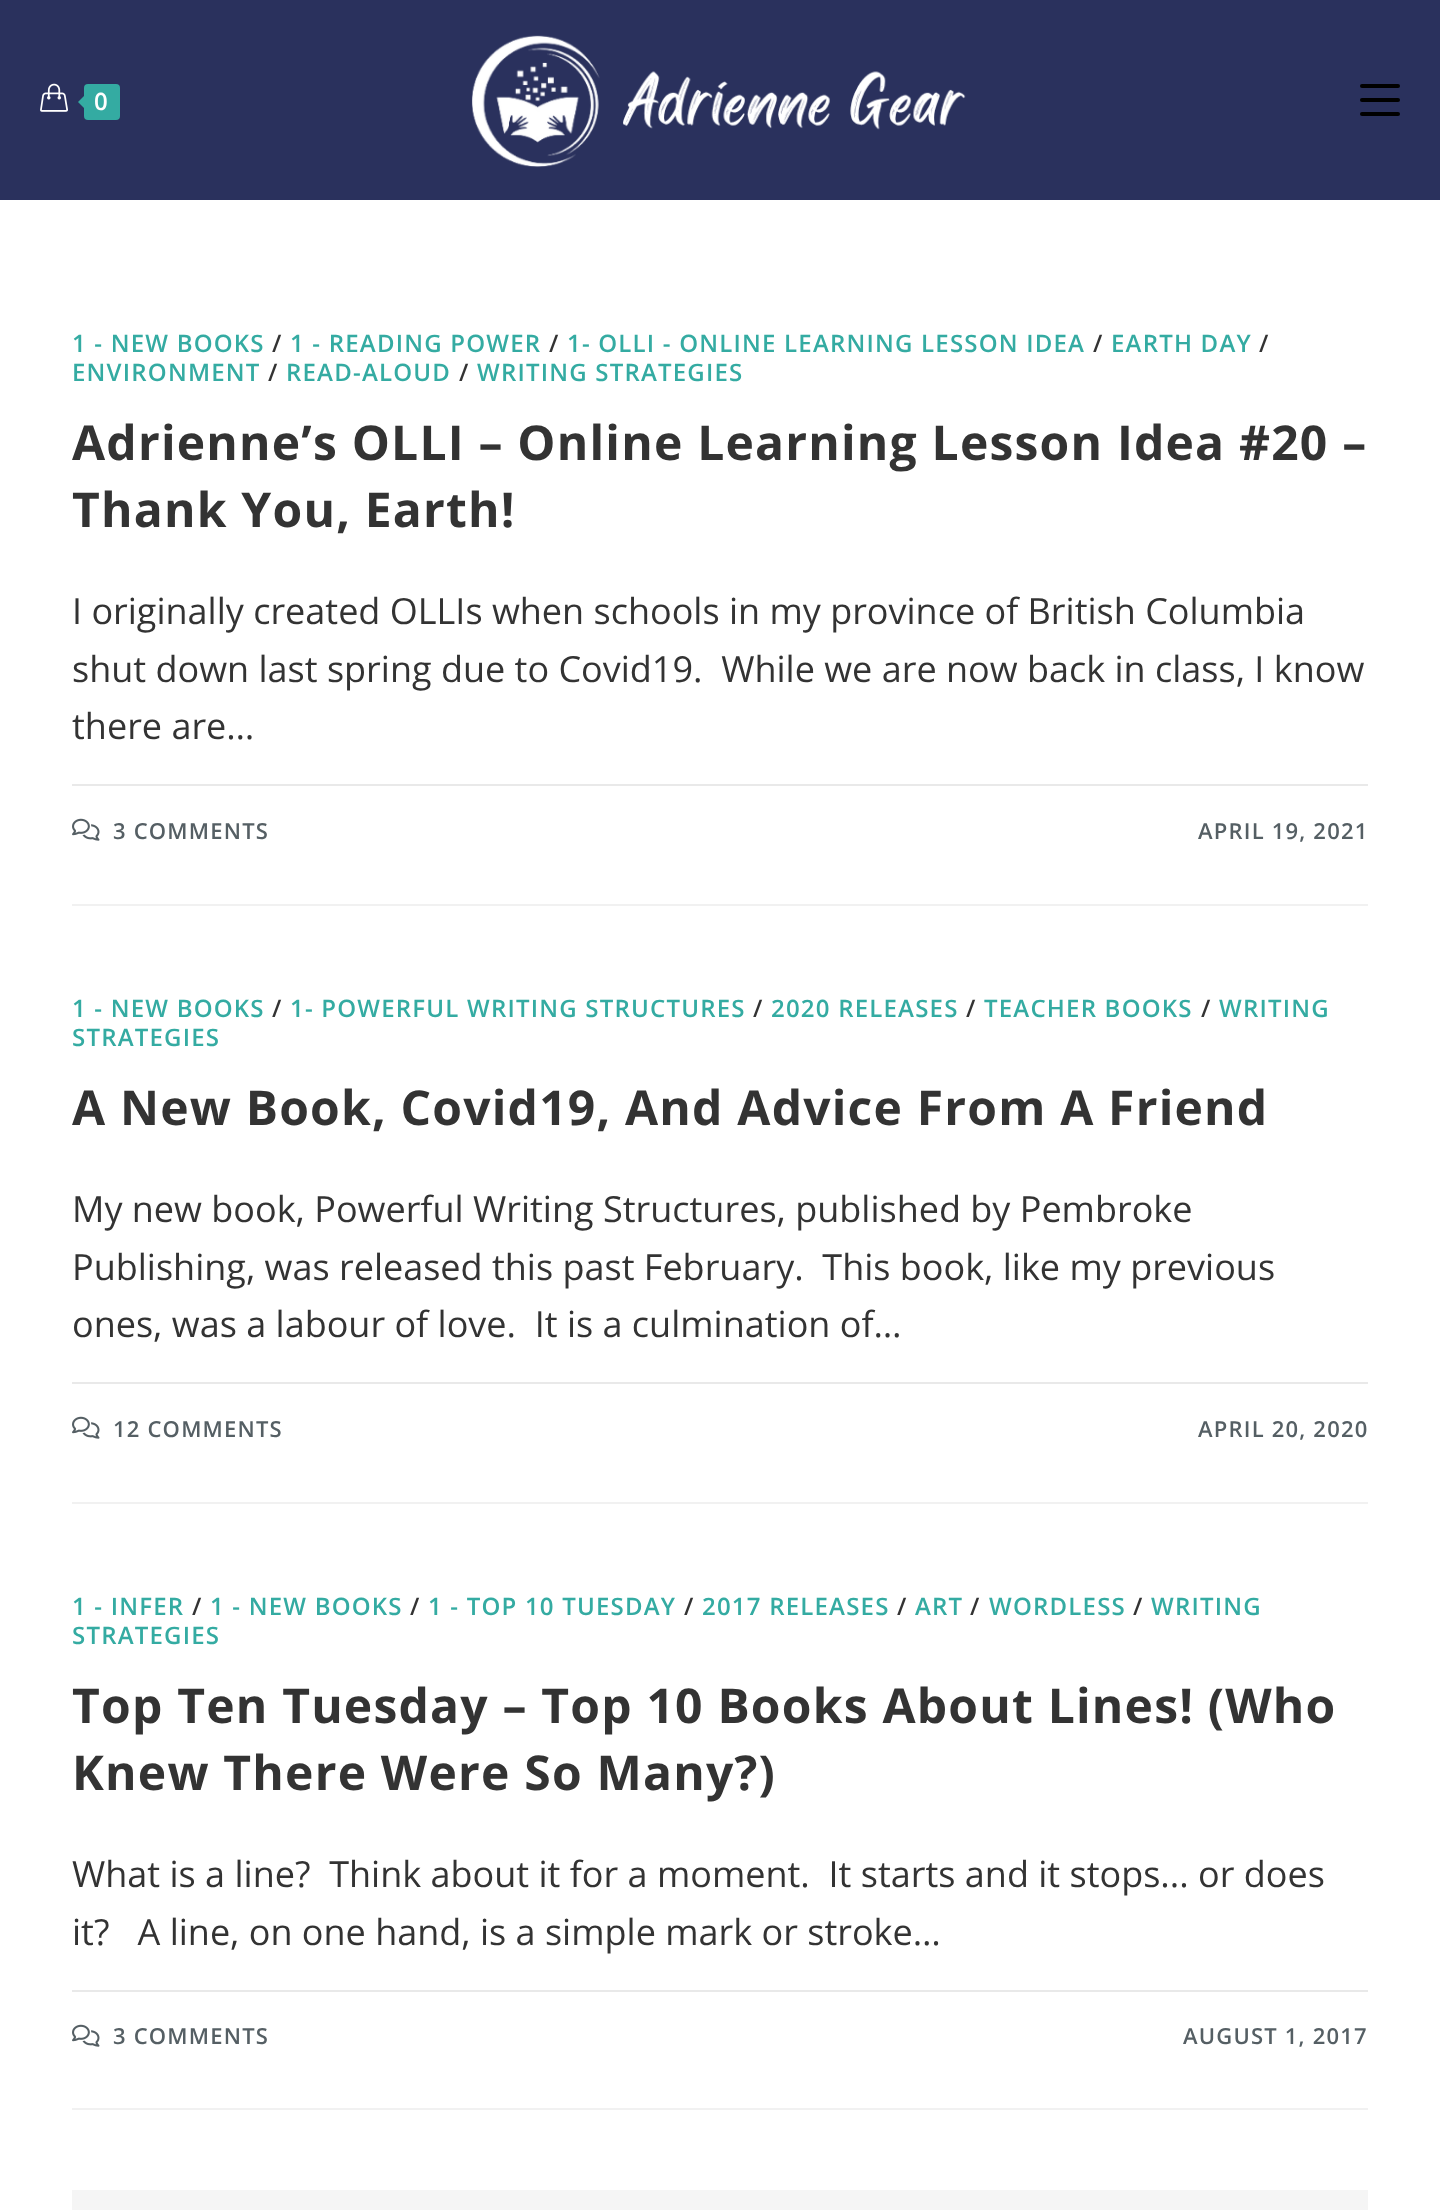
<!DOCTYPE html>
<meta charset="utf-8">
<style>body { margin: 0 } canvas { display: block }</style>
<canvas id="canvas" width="1440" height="2210"></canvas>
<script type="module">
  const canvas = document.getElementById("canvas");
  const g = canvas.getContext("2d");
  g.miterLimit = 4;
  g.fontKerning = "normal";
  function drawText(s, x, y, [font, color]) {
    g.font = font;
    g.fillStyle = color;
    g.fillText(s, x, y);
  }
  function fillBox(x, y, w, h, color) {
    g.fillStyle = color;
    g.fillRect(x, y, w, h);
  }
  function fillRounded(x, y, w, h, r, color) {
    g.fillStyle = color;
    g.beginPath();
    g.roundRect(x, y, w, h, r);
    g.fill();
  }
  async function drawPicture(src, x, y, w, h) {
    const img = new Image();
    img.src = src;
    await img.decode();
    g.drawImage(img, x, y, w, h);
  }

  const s1 = ["600 24px Open Sans", "#FFFFFF"];
  const s2 = ["600 24px Open Sans", "#34ABA2"];
  const s3 = ["600 24px Open Sans", "#333333"];
  const s4 = ["bold 48px Open Sans", "#333333"];
  const s5 = ["36px Open Sans", "#333333"];
  const s6 = ["600 22px Open Sans", "#555F64"];

  fillBox(0, 0, 1440, 2210, "#FFFFFF");
  fillBox(0, 0, 1440, 200, "#2A315D");
  await drawPicture("pic1.png", 40, 83, 28, 29);
  fillRounded(84, 84, 36, 36, 4, "#34ABA2");
  g.beginPath();
  g.moveTo(88, 92);
  g.lineTo(88, 112);
  g.lineTo(78, 102);
  g.closePath();
  g.fill();
  g.letterSpacing = "2px";
  drawText("0", 94, 110, s1);
  await drawPicture("pic2.png", 471, 35, 495, 133);
  fillRounded(1360, 112, 40, 4, 2, "#000000");
  fillRounded(1360, 84, 40, 4, 2, "#000000");
  fillRounded(1360, 98, 40, 4, 2, "#000000");
  fillBox(72, 904, 1296, 2, "#F1F1F1");
  g.letterSpacing = "1.2px";
  drawText("1 - NEW BOOKS", 72, 352, s2);
  drawText("/", 272, 352, s3);
  drawText("1 - READING POWER", 290, 352, s2);
  drawText("/", 549, 352, s3);
  drawText("1- OLLI - ONLINE LEARNING LESSON IDEA", 567, 352, s2);
  drawText("/", 1093, 352, s3);
  drawText("EARTH DAY", 1111, 352, s2);
  drawText("/", 1259, 352, s3);
  drawText("ENVIRONMENT", 72, 381, s2);
  drawText("/", 268, 381, s3);
  drawText("READ-ALOUD", 286, 381, s2);
  drawText("/", 459, 381, s3);
  drawText("WRITING STRATEGIES", 477, 381, s2);
  drawText("Adrienne’s OLLI – Online Learning Lesson Idea #20 –", 72, 460, s4);
  drawText("Thank You, Earth!", 72, 527, s4);
  g.letterSpacing = "0px";
  drawText("I originally created OLLIs when schools in my province of British Columbia", 72, 624, s5);
  drawText("shut down last spring due to Covid19.  While we are now back in class, I know", 72, 682, s5);
  drawText("there are…", 72, 739, s5);
  fillBox(72, 784, 1296, 2, "#E9E9E9");
  await drawPicture("pic3.png", 72, 818, 28, 23);
  g.letterSpacing = "1.2px";
  drawText("3 COMMENTS", 113, 839, s6);
  drawText("APRIL 19, 2021", 1198, 839, s6);
  fillBox(72, 1502, 1296, 2, "#F1F1F1");
  drawText("1 - NEW BOOKS", 72, 1017, s2);
  drawText("/", 272, 1017, s3);
  drawText("1- POWERFUL WRITING STRUCTURES", 290, 1017, s2);
  drawText("/", 753, 1017, s3);
  drawText("2020 RELEASES", 771, 1017, s2);
  drawText("/", 966, 1017, s3);
  drawText("TEACHER BOOKS", 984, 1017, s2);
  drawText("/", 1201, 1017, s3);
  drawText("WRITING", 1219, 1017, s2);
  drawText("STRATEGIES", 72, 1046, s2);
  drawText("A New Book, Covid19, And Advice From A Friend", 72, 1125, s4);
  g.letterSpacing = "0px";
  drawText("My new book, Powerful Writing Structures, published by Pembroke", 72, 1222, s5);
  drawText("Publishing, was released this past February.  This book, like my previous", 72, 1280, s5);
  drawText("ones, was a labour of love.  It is a culmination of…", 72, 1337, s5);
  fillBox(72, 1382, 1296, 2, "#E9E9E9");
  await drawPicture("pic3.png", 72, 1416, 28, 23);
  g.letterSpacing = "1.2px";
  drawText("12 COMMENTS", 113, 1437, s6);
  drawText("APRIL 20, 2020", 1198, 1437, s6);
  fillBox(72, 2108, 1296, 2, "#F1F1F1");
  drawText("1 - INFER", 72, 1615, s2);
  drawText("/", 192, 1615, s3);
  drawText("1 - NEW BOOKS", 210, 1615, s2);
  drawText("/", 410, 1615, s3);
  drawText("1 - TOP 10 TUESDAY", 428, 1615, s2);
  drawText("/", 684, 1615, s3);
  drawText("2017 RELEASES", 702, 1615, s2);
  drawText("/", 897, 1615, s3);
  drawText("ART", 915, 1615, s2);
  drawText("/", 970, 1615, s3);
  drawText("WORDLESS", 989, 1615, s2);
  drawText("/", 1133, 1615, s3);
  drawText("WRITING", 1151, 1615, s2);
  drawText("STRATEGIES", 72, 1644, s2);
  drawText("Top Ten Tuesday – Top 10 Books About Lines! (Who", 72, 1723, s4);
  drawText("Knew There Were So Many?)", 72, 1790, s4);
  g.letterSpacing = "0px";
  drawText("What is a line?  Think about it for a moment.  It starts and it stops... or does", 72, 1887, s5);
  drawText("it?   A line, on one hand, is a simple mark or stroke…", 72, 1945, s5);
  fillBox(72, 1990, 1296, 2, "#E9E9E9");
  await drawPicture("pic3.png", 72, 2024, 28, 23);
  g.letterSpacing = "1.2px";
  drawText("3 COMMENTS", 113, 2044, s6);
  drawText("AUGUST 1, 2017", 1183, 2044, s6);
  fillBox(72, 2190, 1296, 20, "#F5F5F5");
</script>
